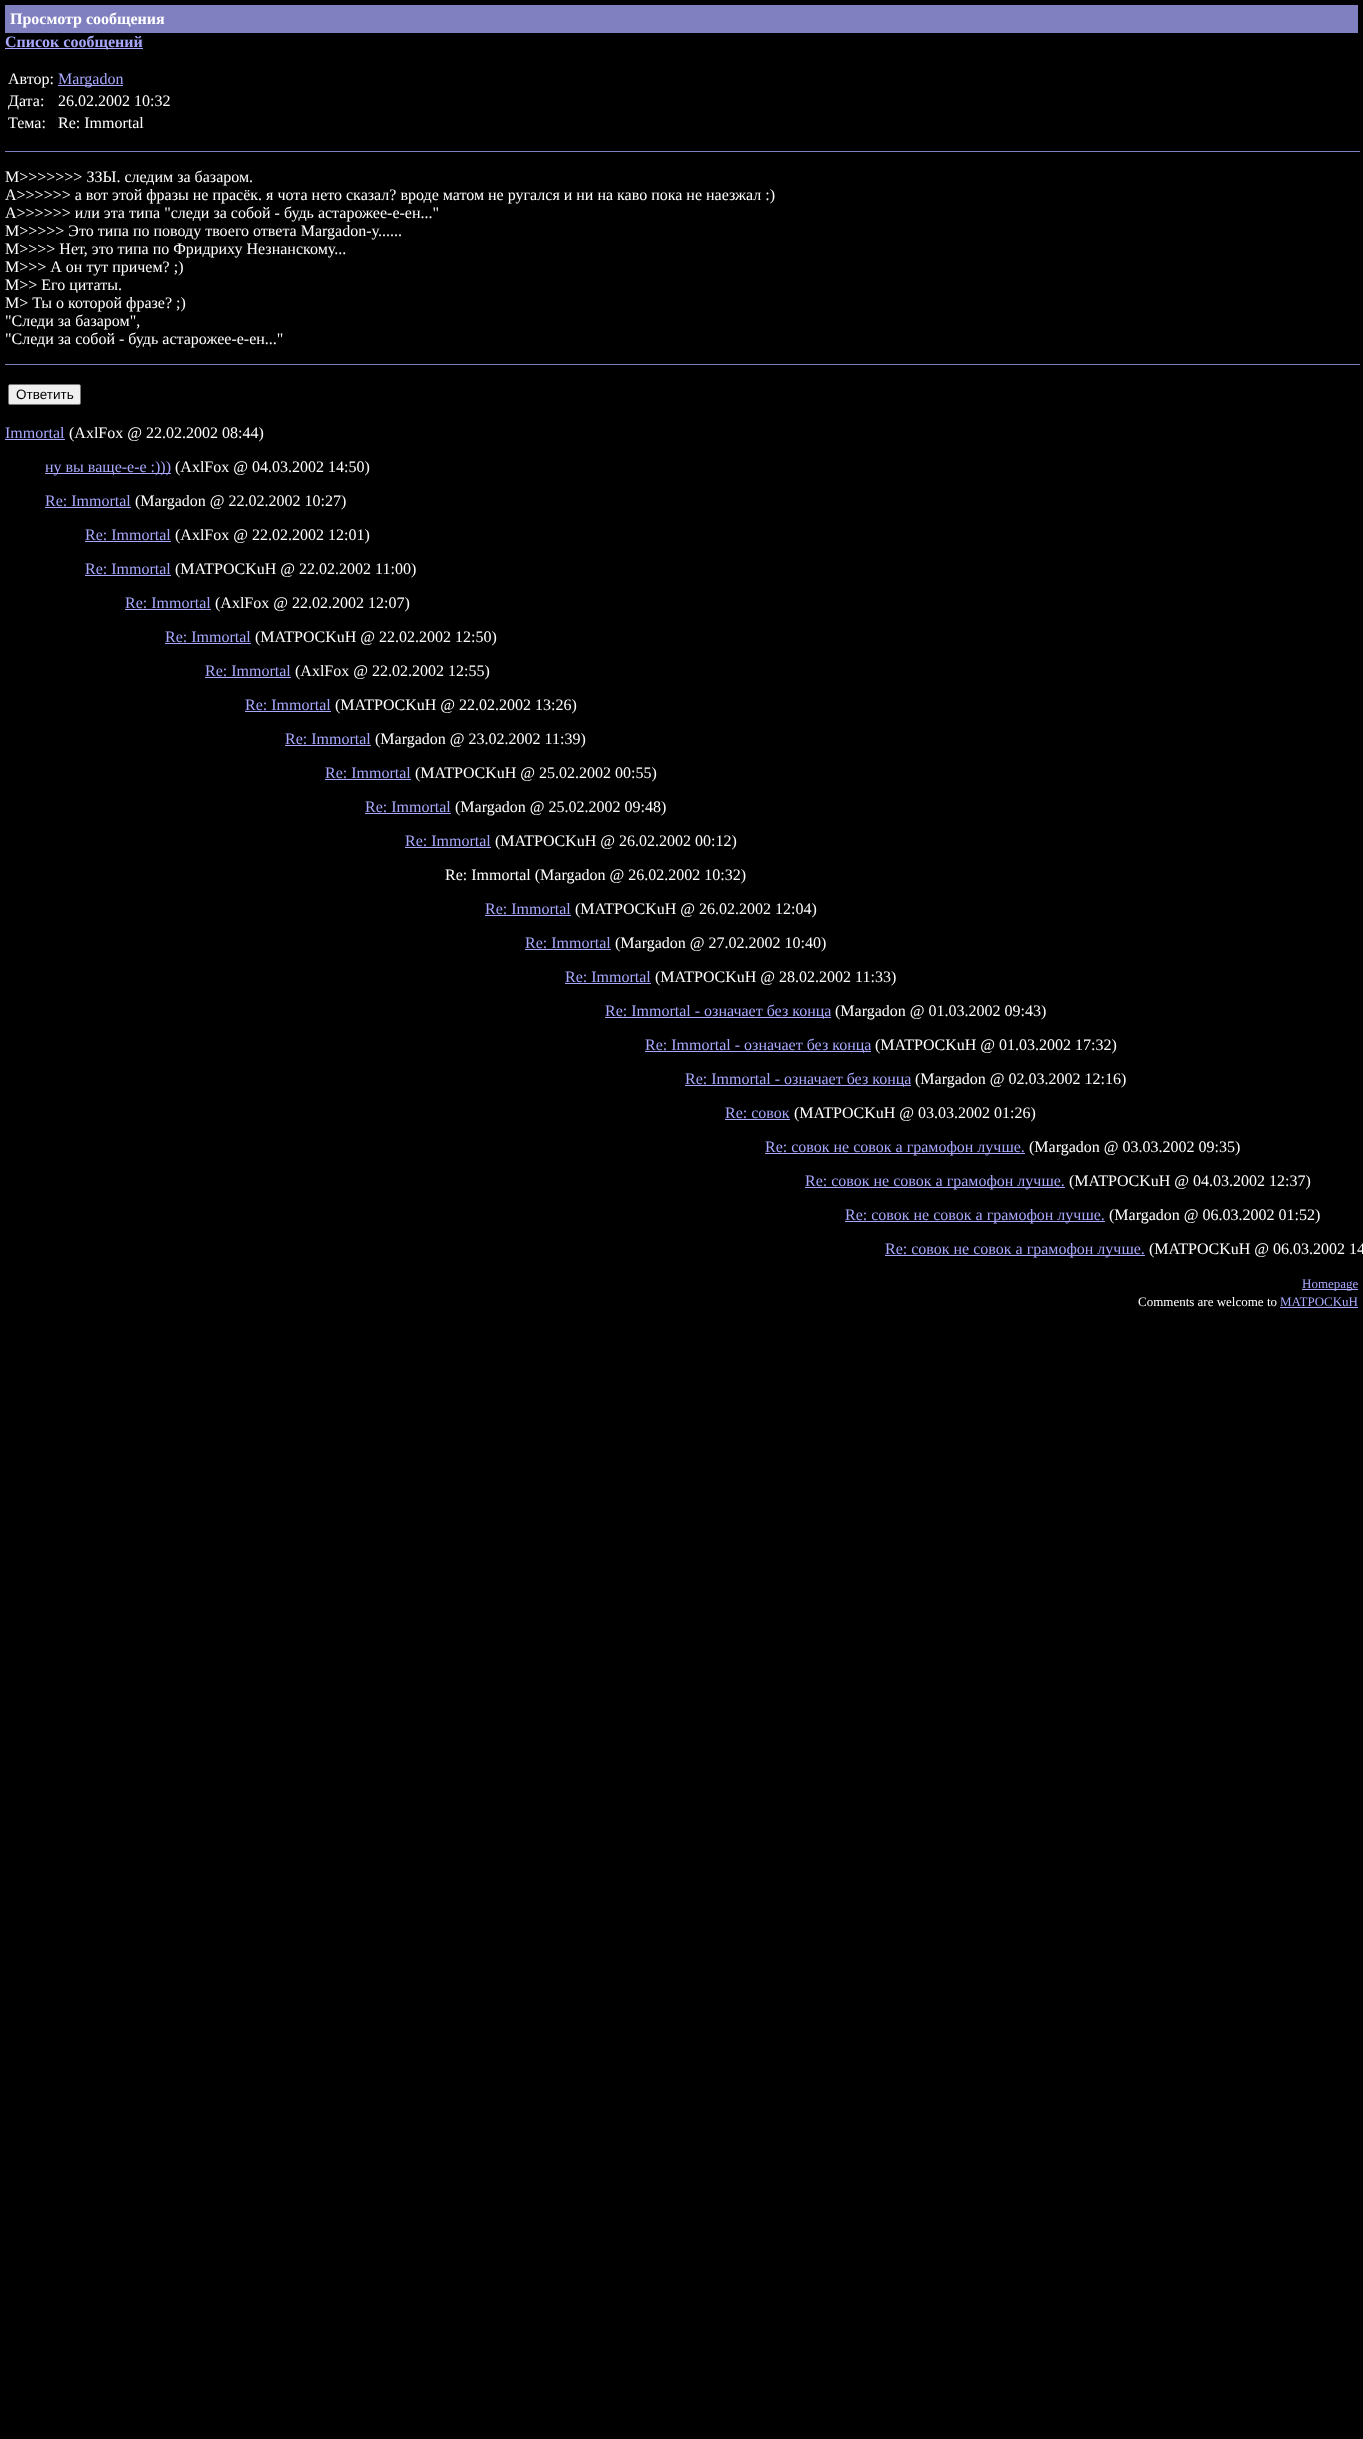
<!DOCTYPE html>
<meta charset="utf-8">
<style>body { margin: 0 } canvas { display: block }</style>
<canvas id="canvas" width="1363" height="2439"></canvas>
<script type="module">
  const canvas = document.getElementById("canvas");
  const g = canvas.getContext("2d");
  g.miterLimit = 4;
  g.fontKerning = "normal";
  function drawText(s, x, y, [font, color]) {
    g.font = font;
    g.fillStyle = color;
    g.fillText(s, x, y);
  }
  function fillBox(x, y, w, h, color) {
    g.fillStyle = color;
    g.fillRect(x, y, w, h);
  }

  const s1 = ["bold 16px Liberation Serif", "#FFFFFF"];
  const s2 = ["bold 16px Liberation Serif", "#A8A8FF"];
  const s3 = ["16px Liberation Serif", "#FFFFFF"];
  const s4 = ["16px Liberation Serif", "#A8A8FF"];
  const s5 = ["13.5px Liberation Sans", "#000000"];
  const s6 = ["13px Liberation Serif", "#A8A8FF"];
  const s7 = ["13px Liberation Serif", "#FFFFFF"];

  fillBox(0, 0, 1363, 2439, "#000000");
  fillBox(5, 5, 1353, 28, "#8080C0");
  drawText("Просмотр сообщения", 10, 24, s1);
  fillBox(5, 48, 138, 1, "#A8A8FF");
  drawText("Список сообщений", 5, 47, s2);
  drawText("Автор:", 8, 84, s3);
  fillBox(58, 85, 65, 1, "#A8A8FF");
  drawText("Margadon", 58, 84, s4);
  drawText("Дата:", 8, 106, s3);
  drawText("26.02.2002 10:32", 58, 106, s3);
  drawText("Тема:", 8, 128, s3);
  drawText("Re: Immortal", 58, 128, s3);
  fillBox(5, 151, 1355, 1, "#8080C0");
  drawText("M>>>>>>> ЗЗЫ. следим за базаром.", 5, 182, s3);
  drawText("A>>>>>> а вот этой фразы не прасёк. я чота нето сказал? вроде матом не ругался и ни на каво пока не наезжал :)", 5, 200, s3);
  drawText("A>>>>>> или эта типа \"следи за собой - будь астарожее-е-ен...\"", 5, 218, s3);
  drawText("M>>>>> Это типа по поводу твоего ответа Margadon-у......", 5, 236, s3);
  drawText("M>>>> Нет, это типа по Фридриху Незнанскому...", 5, 254, s3);
  drawText("M>>> А он тут причем? ;)", 5, 272, s3);
  drawText("M>> Его цитаты.", 5, 290, s3);
  drawText("M> Ты о которой фразе? ;)", 5, 308, s3);
  drawText("\"Следи за базаром\",", 5, 326, s3);
  drawText("\"Cледи за собой - будь астарожее-е-ен...\"", 5, 344, s3);
  fillBox(5, 364, 1355, 1, "#8080C0");
  g.fillStyle = "#EFEFEF";
  g.beginPath();
  g.roundRect(8.5, 384.5, 72, 20, 1.5);
  g.fill();
  g.strokeStyle = "#767676";
  g.stroke();
  drawText("Ответить", 16, 399, s5);
  drawText("Immortal", 5, 438, s4);
  fillBox(5, 439, 60, 1, "#A8A8FF");
  drawText("(AxlFox @ 22.02.2002 08:44)", 69, 438, s3);
  fillBox(45, 473, 126, 1, "#A8A8FF");
  drawText("ну вы ваще-е-е :)))", 45, 472, s4);
  drawText("(AxlFox @ 04.03.2002 14:50)", 175, 472, s3);
  drawText("Re: Immortal", 45, 506, s4);
  fillBox(45, 507, 86, 1, "#A8A8FF");
  drawText("(Margadon @ 22.02.2002 10:27)", 135, 506, s3);
  drawText("Re: Immortal", 85, 540, s4);
  fillBox(85, 541, 86, 1, "#A8A8FF");
  drawText("(AxlFox @ 22.02.2002 12:01)", 175, 540, s3);
  drawText("Re: Immortal", 85, 574, s4);
  fillBox(85, 575, 86, 1, "#A8A8FF");
  drawText("(MATPOCKuH @ 22.02.2002 11:00)", 175, 574, s3);
  drawText("Re: Immortal", 125, 608, s4);
  fillBox(125, 609, 86, 1, "#A8A8FF");
  drawText("(AxlFox @ 22.02.2002 12:07)", 215, 608, s3);
  drawText("Re: Immortal", 165, 642, s4);
  fillBox(165, 643, 86, 1, "#A8A8FF");
  drawText("(MATPOCKuH @ 22.02.2002 12:50)", 255, 642, s3);
  drawText("Re: Immortal", 205, 676, s4);
  fillBox(205, 677, 86, 1, "#A8A8FF");
  drawText("(AxlFox @ 22.02.2002 12:55)", 295, 676, s3);
  drawText("Re: Immortal", 245, 710, s4);
  fillBox(245, 711, 86, 1, "#A8A8FF");
  drawText("(MATPOCKuH @ 22.02.2002 13:26)", 335, 710, s3);
  drawText("Re: Immortal", 285, 744, s4);
  fillBox(285, 745, 86, 1, "#A8A8FF");
  drawText("(Margadon @ 23.02.2002 11:39)", 375, 744, s3);
  drawText("Re: Immortal", 325, 778, s4);
  fillBox(325, 779, 86, 1, "#A8A8FF");
  drawText("(MATPOCKuH @ 25.02.2002 00:55)", 415, 778, s3);
  drawText("Re: Immortal", 365, 812, s4);
  fillBox(365, 813, 86, 1, "#A8A8FF");
  drawText("(Margadon @ 25.02.2002 09:48)", 455, 812, s3);
  drawText("Re: Immortal", 405, 846, s4);
  fillBox(405, 847, 86, 1, "#A8A8FF");
  drawText("(MATPOCKuH @ 26.02.2002 00:12)", 495, 846, s3);
  drawText("Re: Immortal (Margadon @ 26.02.2002 10:32)", 445, 880, s3);
  drawText("Re: Immortal", 485, 914, s4);
  fillBox(485, 915, 86, 1, "#A8A8FF");
  drawText("(MATPOCKuH @ 26.02.2002 12:04)", 575, 914, s3);
  drawText("Re: Immortal", 525, 948, s4);
  fillBox(525, 949, 86, 1, "#A8A8FF");
  drawText("(Margadon @ 27.02.2002 10:40)", 615, 948, s3);
  drawText("Re: Immortal", 565, 982, s4);
  fillBox(565, 983, 86, 1, "#A8A8FF");
  drawText("(MATPOCKuH @ 28.02.2002 11:33)", 655, 982, s3);
  fillBox(605, 1017, 226, 1, "#A8A8FF");
  drawText("Re: Immortal - означает без конца", 605, 1016, s4);
  drawText("(Margadon @ 01.03.2002 09:43)", 835, 1016, s3);
  fillBox(645, 1051, 226, 1, "#A8A8FF");
  drawText("Re: Immortal - означает без конца", 645, 1050, s4);
  drawText("(MATPOCKuH @ 01.03.2002 17:32)", 875, 1050, s3);
  fillBox(685, 1085, 226, 1, "#A8A8FF");
  drawText("Re: Immortal - означает без конца", 685, 1084, s4);
  drawText("(Margadon @ 02.03.2002 12:16)", 915, 1084, s3);
  drawText("Re: совок", 725, 1118, s4);
  fillBox(725, 1119, 65, 1, "#A8A8FF");
  drawText("(MATPOCKuH @ 03.03.2002 01:26)", 794, 1118, s3);
  fillBox(765, 1153, 260, 1, "#A8A8FF");
  drawText("Re: совок не совок а грамофон лучше.", 765, 1152, s4);
  drawText("(Margadon @ 03.03.2002 09:35)", 1029, 1152, s3);
  fillBox(805, 1187, 260, 1, "#A8A8FF");
  drawText("Re: совок не совок а грамофон лучше.", 805, 1186, s4);
  drawText("(MATPOCKuH @ 04.03.2002 12:37)", 1069, 1186, s3);
  fillBox(845, 1221, 260, 1, "#A8A8FF");
  drawText("Re: совок не совок а грамофон лучше.", 845, 1220, s4);
  drawText("(Margadon @ 06.03.2002 01:52)", 1109, 1220, s3);
  fillBox(885, 1255, 260, 1, "#A8A8FF");
  drawText("Re: совок не совок а грамофон лучше.", 885, 1254, s4);
  drawText("(MATPOCKuH @ 06.03.2002 14", 1149, 1254, s3);
  fillBox(1302, 1289, 56, 1, "#A8A8FF");
  drawText("Homepage", 1302, 1288, s6);
  drawText("Comments are welcome to", 1138, 1306, s7);
  drawText("MATPOCKuH", 1280, 1306, s6);
  fillBox(1280, 1307, 78, 1, "#A8A8FF");
</script>
